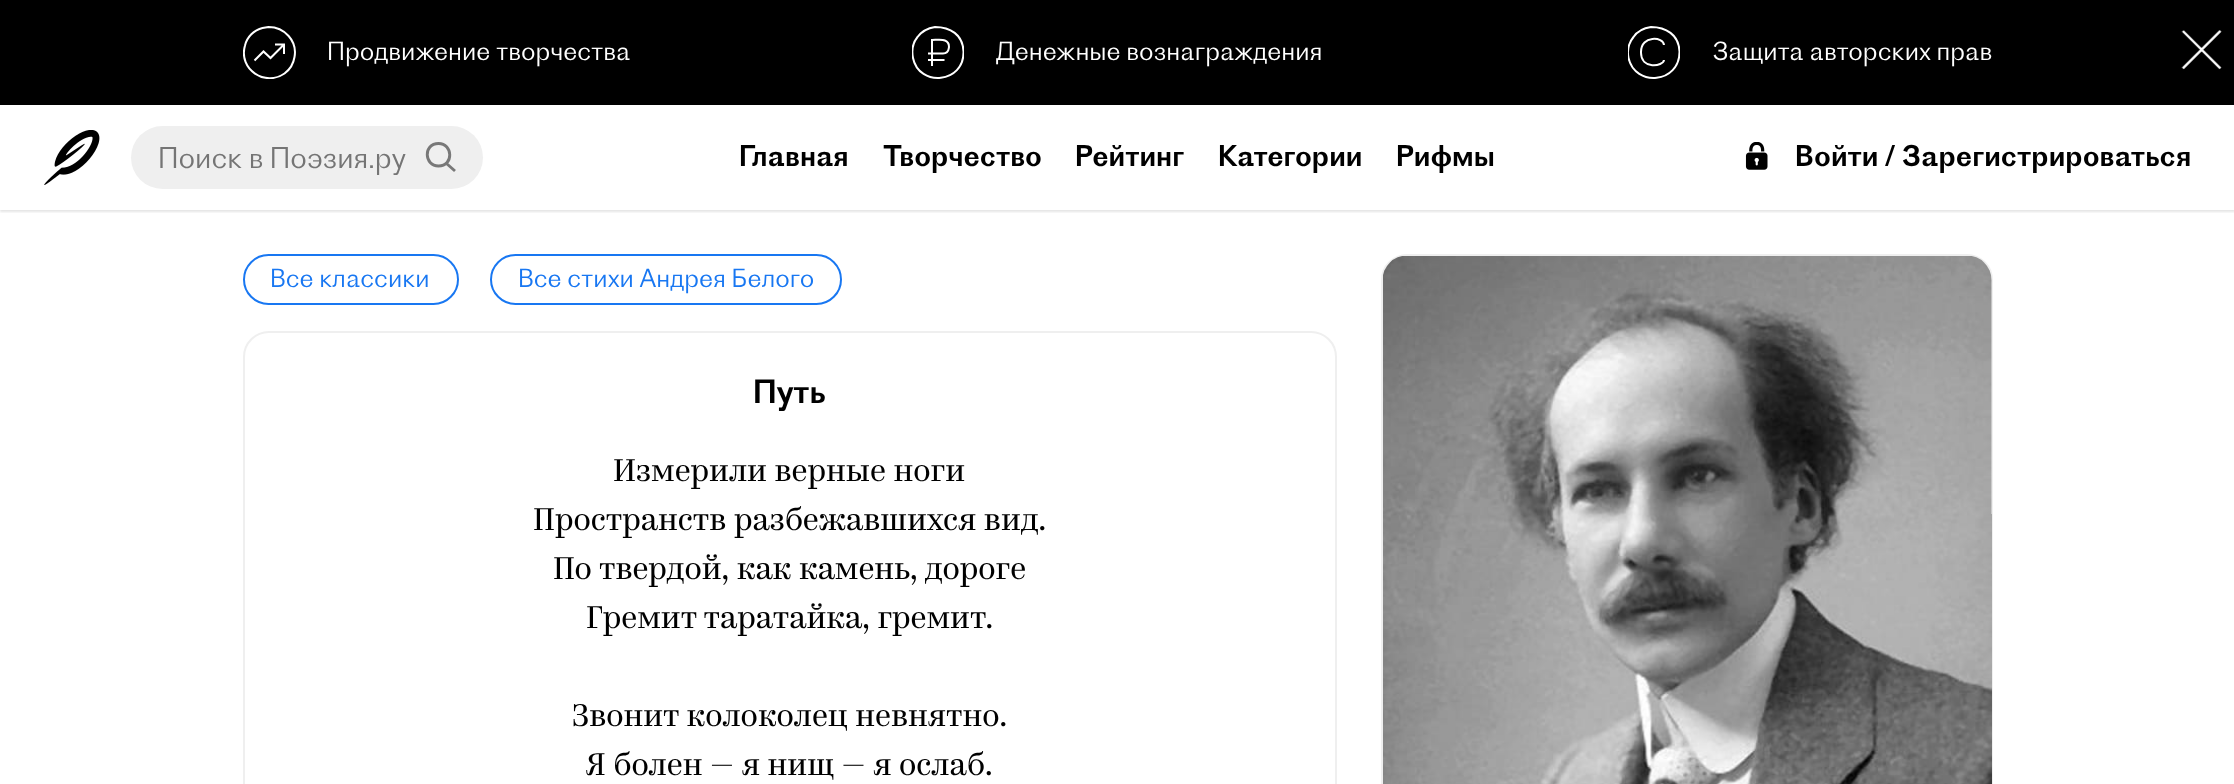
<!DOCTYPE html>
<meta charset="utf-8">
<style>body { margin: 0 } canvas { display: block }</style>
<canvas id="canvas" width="2234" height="784"></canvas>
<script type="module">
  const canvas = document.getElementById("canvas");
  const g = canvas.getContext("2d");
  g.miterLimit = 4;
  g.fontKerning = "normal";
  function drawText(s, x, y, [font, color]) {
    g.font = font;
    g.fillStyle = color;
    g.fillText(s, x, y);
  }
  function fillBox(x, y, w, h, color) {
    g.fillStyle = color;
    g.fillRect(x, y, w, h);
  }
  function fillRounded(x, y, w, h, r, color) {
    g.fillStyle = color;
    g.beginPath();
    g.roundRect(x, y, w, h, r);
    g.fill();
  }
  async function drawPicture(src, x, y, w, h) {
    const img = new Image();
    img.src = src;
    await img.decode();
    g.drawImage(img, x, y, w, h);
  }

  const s1 = ["300 24.5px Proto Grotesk", "#FFFFFF"];
  const s2 = ["300 28px Proto Grotesk", "#757575"];
  const s3 = ["28px Proto Grotesk", "#000000"];
  const s4 = ["300 24.5px Proto Grotesk", "#1877F2"];
  const s5 = ["31.5px Proto Grotesk", "#000000"];
  const s6 = ["31.5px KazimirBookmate", "#000000"];

  fillBox(0, 0, 2234, 784, "#FFFFFF");
  g.save();
  g.beginPath();
  g.rect(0, 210, 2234, 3);
  g.clip();
  g.fillStyle = "rgba(0, 0, 0, 0.1)";
  g.filter = "blur(1px)";
  g.beginPath();
  g.rect(0, 2, 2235, 210);
  g.fill();
  g.filter = "none";
  g.restore();
  fillBox(0, 0, 2234, 105, "#000000");
  g.save();
  g.beginPath();
  g.rect(243, 26, 53, 53);
  g.clip();
  g.beginPath();
  g.moveTo(254.5, 60.5);
  g.lineTo(263.5, 51.5);
  g.lineTo(270.5, 58);
  g.lineTo(284, 44.5);
  g.moveTo(275, 44.5);
  g.lineTo(284, 44.5);
  g.lineTo(284, 54);
  g.moveTo(268.5, 27);
  g.lineTo(262.5, 28);
  g.bezierCurveTo(254, 30, 247, 37, 245, 45.5);
  g.bezierCurveTo(238, 69.5, 265.5, 87, 284.5, 73.5);
  g.bezierCurveTo(290, 69.5, 293.5, 63.5, 294.5, 57);
  g.bezierCurveTo(297.5, 41, 284.5, 27, 268.5, 27);
  g.closePath();
  g.strokeStyle = "#FFFFFF";
  g.lineWidth = 2;
  g.stroke();
  g.restore();
  drawText("Продвижение творчества", 327, 60, s1);
  g.save();
  g.beginPath();
  g.rect(912, 26, 52, 53);
  g.clip();
  g.beginPath();
  g.moveTo(932, 66);
  g.lineTo(932, 40);
  g.bezierCurveTo(935.5, 40, 942, 39, 945, 40.5);
  g.bezierCurveTo(951, 43, 950, 53.5, 943, 53.5);
  g.lineTo(928, 53.5);
  g.moveTo(928, 60);
  g.lineTo(944.5, 60);
  g.moveTo(935, 27);
  g.bezierCurveTo(928.5, 28, 922, 31, 917.5, 37);
  g.bezierCurveTo(913, 42.5, 911.5, 50.5, 913, 58);
  g.bezierCurveTo(919, 87.5, 964.5, 83.5, 963.5, 51.5);
  g.bezierCurveTo(963, 34.5, 950, 27, 935, 27);
  g.closePath();
  g.strokeStyle = "#FFFFFF";
  g.lineWidth = 2;
  g.stroke();
  g.restore();
  drawText("Денежные вознаграждения", 996, 60, s1);
  g.save();
  g.beginPath();
  g.rect(1628, 26, 52, 53);
  g.clip();
  g.beginPath();
  g.moveTo(1664, 45);
  g.bezierCurveTo(1663.5, 36.5, 1641, 35, 1641, 52);
  g.bezierCurveTo(1640.5, 70, 1663.5, 66.5, 1664, 60);
  g.moveTo(1651, 27);
  g.bezierCurveTo(1644, 28, 1637.5, 31, 1633.5, 37);
  g.bezierCurveTo(1629, 42.5, 1627, 50.5, 1628.5, 58);
  g.bezierCurveTo(1635, 87.5, 1680, 83.5, 1679.5, 51.5);
  g.bezierCurveTo(1679, 34.5, 1665.5, 27, 1651, 27);
  g.closePath();
  g.strokeStyle = "#FFFFFF";
  g.lineWidth = 2;
  g.stroke();
  g.restore();
  drawText("Защита авторских прав", 1712, 60, s1);
  await drawPicture("pic1.png", 2181, 30, 41, 40);
  await drawPicture("pic2.png", 44, 130, 56, 55);
  fillRounded(131, 126, 352, 63, 31.5, "#EFEFEF");
  drawText("Поиск в Поэзия.ру", 158, 168, s2);
  g.beginPath();
  g.moveTo(438.5, 166);
  g.bezierCurveTo(424, 166, 423, 143.5, 438.5, 143.5);
  g.bezierCurveTo(453, 143.5, 454, 166, 438.5, 166);
  g.moveTo(455, 171);
  g.lineTo(446.5, 163.5);
  g.strokeStyle = "#787878";
  g.lineWidth = 2.9;
  g.stroke();
  drawText("Главная", 739, 166, s3);
  drawText("Творчество", 883, 166, s3);
  drawText("Рейтинг", 1075, 166, s3);
  drawText("Категории", 1218, 166, s3);
  drawText("Рифмы", 1396, 166, s3);
  await drawPicture("pic3.png", 1745, 142, 23, 28);
  drawText("Войти / Зарегистрироваться", 1795, 166, s3);
  g.beginPath();
  g.roundRect(244, 255, 214, 49, 24.5);
  g.strokeStyle = "#1877F2";
  g.lineWidth = 2;
  g.stroke();
  drawText("Все классики", 270, 287, s4);
  g.beginPath();
  g.roundRect(491, 255, 350, 49, 24.5);
  g.stroke();
  drawText("Все стихи Андрея Белого", 518, 287, s4);
  g.beginPath();
  g.roundRect(244, 332, 1092, 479, 25);
  g.strokeStyle = "#EFEFEF";
  g.stroke();
  drawText("Путь", 753, 403, s5);
  drawText("Измерили верные ноги", 613, 481, s6);
  drawText("Пространств разбежавшихся вид.", 533, 530, s6);
  drawText("По твердой, как камень, дороге", 553, 579, s6);
  drawText("Гремит таратайка, гремит.", 586, 628, s6);
  drawText("Звонит колоколец невнятно.", 572, 726, s6);
  drawText("Я болен — я нищ — я ослаб.", 586, 775, s6);
  g.beginPath();
  g.roundRect(1382, 255, 610, 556, 25);
  g.stroke();
  await drawPicture("pic4.png", 1383, 256, 609, 528);
</script>
